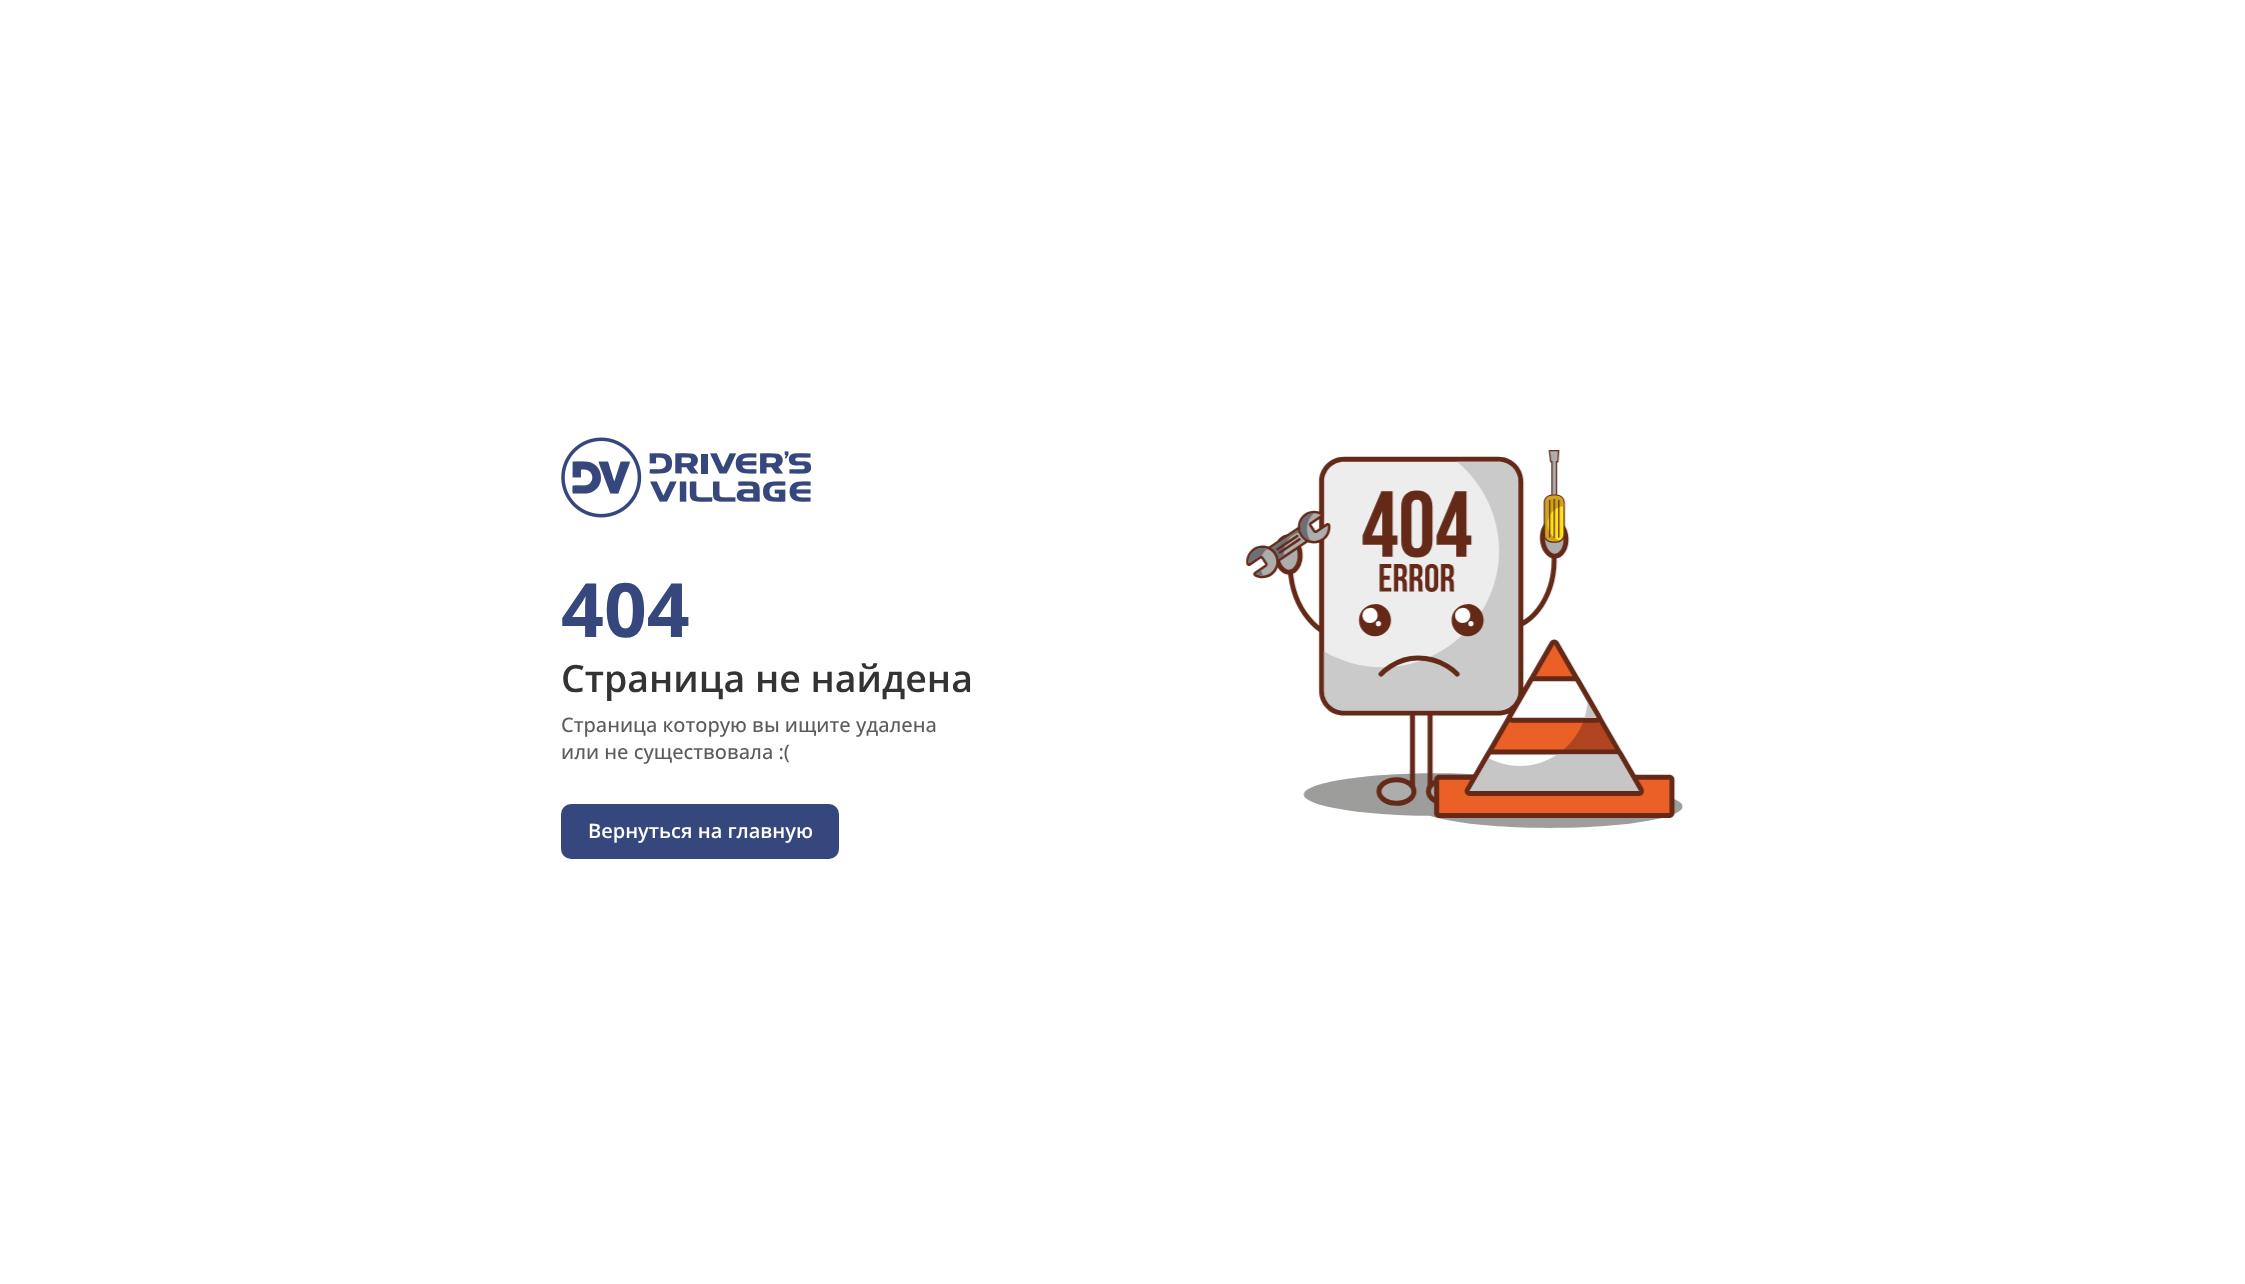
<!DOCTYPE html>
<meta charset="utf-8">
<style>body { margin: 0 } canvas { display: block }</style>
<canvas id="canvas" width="2245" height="1284"></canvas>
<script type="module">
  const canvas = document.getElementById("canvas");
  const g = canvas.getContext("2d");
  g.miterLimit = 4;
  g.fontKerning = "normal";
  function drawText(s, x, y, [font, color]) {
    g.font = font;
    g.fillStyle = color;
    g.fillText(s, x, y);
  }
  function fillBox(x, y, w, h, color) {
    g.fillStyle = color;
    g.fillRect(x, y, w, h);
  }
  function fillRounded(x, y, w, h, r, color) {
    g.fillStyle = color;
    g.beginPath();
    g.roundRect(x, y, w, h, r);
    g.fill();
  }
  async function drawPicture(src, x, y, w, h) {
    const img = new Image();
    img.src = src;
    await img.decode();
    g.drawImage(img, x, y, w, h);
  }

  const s1 = ["bold 75px Open Sans", "#36477D"];
  const s2 = ["600 37.5px Open Sans", "#333333"];
  const s3 = ["500 20px Open Sans", "#5C5C5C"];
  const s4 = ["600 20px Open Sans", "#FFFFFF"];

  fillBox(0, 0, 2245, 1284, "#FFFFFF");
  await drawPicture("pic1.png", 561, 437, 250, 81);
  drawText("404", 561, 637, s1);
  drawText("Страница не найдена", 561, 692, s2);
  drawText("Страница которую вы ищите удалена", 561, 732, s3);
  drawText("или не существовала :(", 561, 759, s3);
  fillRounded(561, 804, 278, 55, 10, "#36477D");
  drawText("Вернуться на главную", 588, 838, s4);
  await drawPicture("pic2.png", 1246, 450, 437, 378);
</script>
